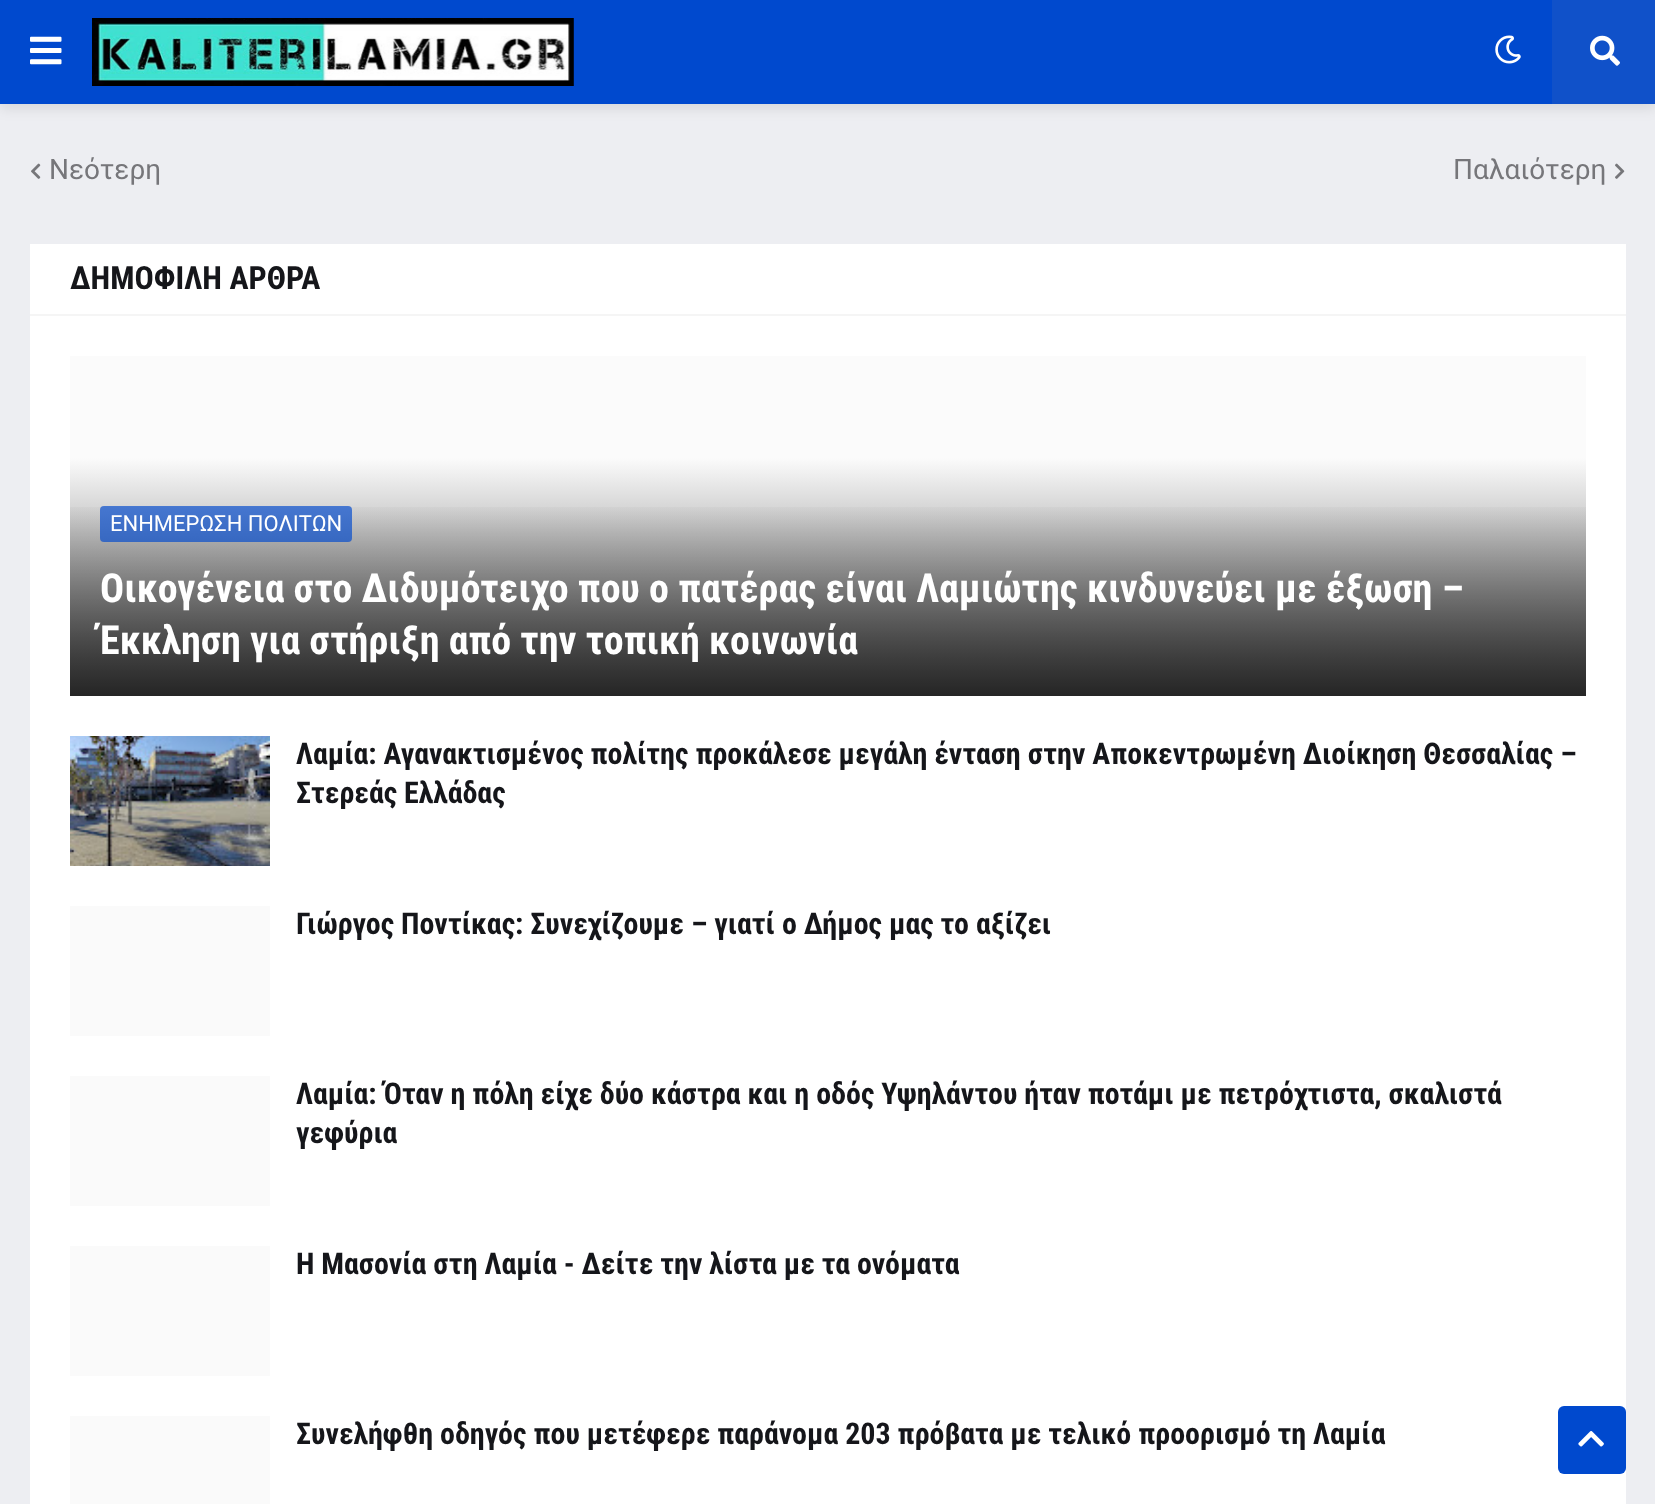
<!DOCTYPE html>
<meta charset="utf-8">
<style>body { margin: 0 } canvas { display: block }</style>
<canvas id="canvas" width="1655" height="1504"></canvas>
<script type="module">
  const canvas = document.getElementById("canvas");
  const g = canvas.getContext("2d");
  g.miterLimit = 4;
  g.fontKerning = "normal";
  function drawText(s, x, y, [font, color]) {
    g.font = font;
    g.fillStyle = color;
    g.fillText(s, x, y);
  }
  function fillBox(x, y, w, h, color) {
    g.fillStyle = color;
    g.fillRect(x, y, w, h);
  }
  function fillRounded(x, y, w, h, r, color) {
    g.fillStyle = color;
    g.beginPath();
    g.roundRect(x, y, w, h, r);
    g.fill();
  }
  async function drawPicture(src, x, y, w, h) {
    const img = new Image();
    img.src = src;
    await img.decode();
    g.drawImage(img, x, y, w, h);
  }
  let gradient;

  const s1 = ["28px Roboto", "#76767A"];
  const s2 = ["bold 32px Roboto Condensed", "#15161A"];
  const s3 = ["22px Roboto", "#FFFFFF"];
  const s4 = ["bold 40px Roboto Condensed", "#FFFFFF"];
  const s5 = ["bold 30px Roboto Condensed", "#15161A"];

  fillBox(0, 0, 1655, 1504, "#EDEEF2");
  g.fillStyle = "rgba(0, 0, 0, 0.1)";
  g.filter = "blur(7px)";
  g.beginPath();
  g.rect(0, 4, 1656, 104);
  g.fill();
  g.filter = "none";
  fillBox(0, 0, 1552, 104, "#0049CE");
  await drawPicture("pic1.png", 30, 36, 32, 29);
  await drawPicture("pic2.png", 92, 18, 482, 68);
  await drawPicture("pic3.png", 1495, 35, 26, 29);
  fillBox(1552, 0, 103, 104, "#1051C9");
  await drawPicture("pic4.png", 1590, 35, 30, 31);
  await drawPicture("pic5.png", 31, 163, 10, 16);
  drawText("Νεότερη", 49, 179, s1);
  drawText("Παλαιότερη", 1453, 179, s1);
  await drawPicture("pic6.png", 1615, 163, 10, 16);
  fillBox(30, 244, 1596, 1260, "#FFFFFF");
  fillBox(30, 314, 1596, 2, "#F5F5F5");
  drawText("ΔΗΜΟΦΙΛΗ ΑΡΘΡΑ", 70, 289, s2);
  fillBox(70, 356, 1516, 102, "#FBFBFB");
  gradient = g.createLinearGradient(828, 458, 828, 696);
  gradient.addColorStop(0, "#FBFBFB");
  gradient.addColorStop(1, "#4B4B4B");
  g.fillStyle = gradient;
  g.fillRect(70, 458, 1516, 238);
  gradient = g.createLinearGradient(828, 476, 828, 696);
  gradient.addColorStop(0.1, "rgba(0, 0, 0, 0)");
  gradient.addColorStop(1, "rgba(0, 0, 0, 0.5)");
  g.fillStyle = gradient;
  g.fillRect(70, 507, 1516, 189);
  fillRounded(100, 506, 252, 36, 4, "rgba(0, 73, 206, 0.67)");
  drawText("ΕΝΗΜΕΡΩΣΗ ΠΟΛΙΤΩΝ", 110, 531, s3);
  drawText("Οικογένεια στο Διδυμότειχο που ο πατέρας είναι Λαμιώτης κινδυνεύει με έξωση –", 100, 602, s4);
  drawText("Έκκληση για στήριξη από την τοπική κοινωνία", 100, 654, s4);
  await drawPicture("pic7.png", 70, 736, 200, 130);
  drawText("Λαμία: Αγανακτισμένος πολίτης προκάλεσε μεγάλη ένταση στην Αποκεντρωμένη Διοίκηση Θεσσαλίας –", 296, 764, s5);
  drawText("Στερεάς Ελλάδας", 296, 803, s5);
  fillBox(70, 906, 200, 130, "#FAFAFA");
  drawText("Γιώργος Ποντίκας: Συνεχίζουμε – γιατί ο Δήμος μας το αξίζει", 296, 934, s5);
  fillBox(70, 1076, 200, 130, "#FAFAFA");
  drawText("Λαμία: Όταν η πόλη είχε δύο κάστρα και η οδός Υψηλάντου ήταν ποτάμι με πετρόχτιστα, σκαλιστά", 296, 1104, s5);
  drawText("γεφύρια", 296, 1143, s5);
  fillBox(70, 1246, 200, 130, "#FAFAFA");
  drawText("Η Μασονία στη Λαμία - Δείτε την λίστα με τα ονόματα", 296, 1274, s5);
  fillBox(70, 1416, 200, 88, "#FAFAFA");
  drawText("Συνελήφθη οδηγός που μετέφερε παράνομα 203 πρόβατα με τελικό προορισμό τη Λαμία", 296, 1444, s5);
  fillRounded(1558, 1406, 68, 68, 6, "#0049CE");
  await drawPicture("pic8.png", 1578, 1431, 26, 16);
</script>
